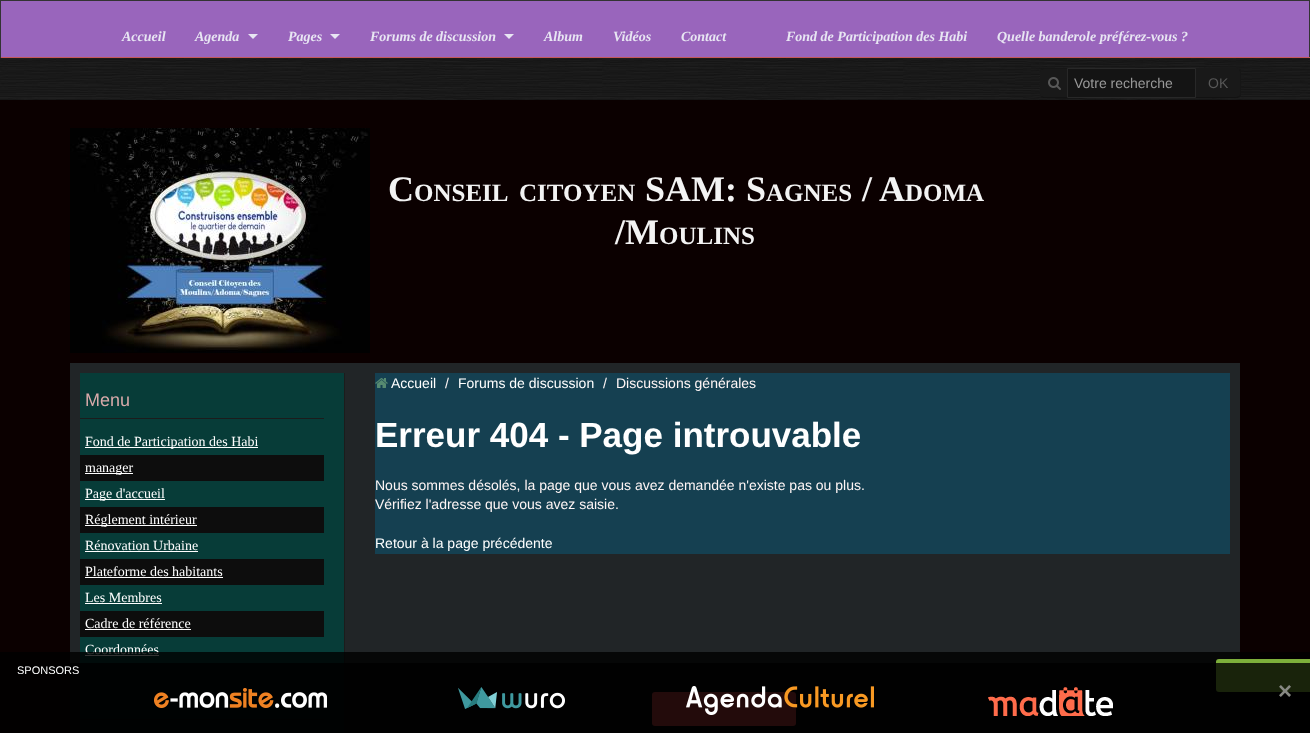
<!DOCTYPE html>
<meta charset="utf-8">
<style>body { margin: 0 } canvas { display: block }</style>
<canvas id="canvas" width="1310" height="733"></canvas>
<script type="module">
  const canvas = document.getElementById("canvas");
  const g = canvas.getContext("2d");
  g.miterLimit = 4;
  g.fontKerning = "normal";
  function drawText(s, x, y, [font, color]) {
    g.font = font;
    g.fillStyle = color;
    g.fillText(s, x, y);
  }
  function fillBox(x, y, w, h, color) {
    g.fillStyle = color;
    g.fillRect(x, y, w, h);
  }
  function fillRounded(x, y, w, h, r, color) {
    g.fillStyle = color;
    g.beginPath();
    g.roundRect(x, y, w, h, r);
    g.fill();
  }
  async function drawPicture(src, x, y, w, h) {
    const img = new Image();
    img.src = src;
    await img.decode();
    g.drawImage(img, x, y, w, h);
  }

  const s1 = ["italic bold 14px Liberation Serif", "#E8E6F3"];
  const s2 = ["14px Liberation Sans", "#999999"];
  const s3 = ["14px Liberation Sans", "#585858"];
  const s4 = ["bold 36px Liberation Serif", "#F3F3F3"];
  const s5 = ["bold 25px Liberation Serif", "#F3F3F3"];
  const s6 = ["18px Liberation Sans", "#D7A9A9"];
  const s7 = ["14px Liberation Serif", "#FFFFFF"];
  const s8 = ["14px Liberation Sans", "#FFFFFF"];
  const s9 = ["14px Liberation Sans", "#FFF6F6"];
  const s10 = ["bold 35px Liberation Sans", "#FFFFFF"];
  const s11 = ["11px Liberation Sans", "#FFFFFF"];
  const s12 = ["bold 24px Liberation Sans", "#878983"];

  fillBox(0, 0, 1310, 733, "#0B0000");
  await drawPicture("pic1.png", 0, 58, 1310, 42);
  fillBox(1, 1, 1308, 56, "#9965BC");
  fillBox(0, 0, 1310, 1, "#333333");
  fillBox(1309, 0, 1, 58, "#333333");
  fillBox(0, 57, 1310, 1, "#C55858");
  fillBox(0, 0, 1, 58, "#333333");
  drawText("Accueil", 122, 41, s1);
  drawText("Agenda", 195, 41, s1);
  g.beginPath();
  g.moveTo(248, 34);
  g.lineTo(258, 34);
  g.lineTo(253, 39);
  g.closePath();
  g.fill();
  drawText("Pages", 288, 41, s1);
  g.beginPath();
  g.moveTo(330, 34);
  g.lineTo(340, 34);
  g.lineTo(335, 39);
  g.closePath();
  g.fill();
  drawText("Forums de discussion", 370, 41, s1);
  g.beginPath();
  g.moveTo(504, 34);
  g.lineTo(514, 34);
  g.lineTo(509, 39);
  g.closePath();
  g.fill();
  drawText("Album", 544, 41, s1);
  drawText("Vidéos", 613, 41, s1);
  drawText("Contact", 681, 41, s1);
  drawText("Fond de Participation des Habi", 786, 41, s1);
  drawText("Quelle banderole préférez-vous ?", 997, 41, s1);
  g.fillStyle = "#191919";
  g.beginPath();
  g.roundRect(1040, 68, 28, 30, [4, 0, 0, 4]);
  g.fill();
  g.fillStyle = "#161616";
  g.beginPath();
  g.moveTo(1044, 68);
  g.bezierCurveTo(1043, 68, 1042, 68.5, 1041, 69);
  g.lineTo(1042, 70);
  g.bezierCurveTo(1042.5, 69.5, 1043, 69, 1044, 69);
  g.lineTo(1067, 69);
  g.lineTo(1068, 68);
  g.closePath();
  g.fill();
  g.fillStyle = "#131313";
  g.beginPath();
  g.moveTo(1068, 98);
  g.lineTo(1067, 97);
  g.lineTo(1044, 97);
  g.bezierCurveTo(1043, 97, 1042.5, 96.5, 1042, 96);
  g.lineTo(1041, 97);
  g.bezierCurveTo(1042, 97.5, 1043, 98, 1044, 98);
  g.closePath();
  g.fill();
  await drawPicture("pic2.png", 1048, 77, 13, 13);
  g.fillStyle = "#191919";
  g.beginPath();
  g.roundRect(1195, 68, 46, 30, [0, 4, 4, 0]);
  g.fill();
  g.fillStyle = "#161616";
  g.beginPath();
  g.moveTo(1241, 95);
  g.lineTo(1240, 97);
  g.lineTo(1239, 96);
  g.bezierCurveTo(1240, 95.5, 1240, 94.5, 1240, 93.5);
  g.lineTo(1240, 83);
  g.lineTo(1240, 72.5);
  g.bezierCurveTo(1240, 71.5, 1240, 70.5, 1239, 70);
  g.lineTo(1240, 69);
  g.lineTo(1241, 71);
  g.closePath();
  g.fill();
  g.fillStyle = "rgba(0, 0, 0, 0.25)";
  g.beginPath();
  g.moveTo(1230, 98);
  g.bezierCurveTo(1235, 98, 1238, 98, 1240, 97);
  g.lineTo(1239, 96);
  g.bezierCurveTo(1238, 97, 1235, 97, 1230, 97);
  g.lineTo(1196, 97);
  g.lineTo(1195, 98);
  g.closePath();
  g.fill();
  g.fillStyle = "#141414";
  g.beginPath();
  g.rect(1067.5, 68.5, 128, 29);
  g.fill();
  g.strokeStyle = "#282828";
  g.stroke();
  drawText("Votre recherche", 1074, 88, s2);
  drawText("OK", 1208, 88, s3);
  await drawPicture("pic3.png", 70, 128, 300, 225);
  drawText("C", 388, 201, s4);
  drawText("ONSEIL", 414, 201, s5);
  drawText("CITOYEN", 519, 201, s5);
  drawText("SAM: S", 645, 201, s4);
  drawText("AGNES", 766, 201, s5);
  drawText("/ A", 862, 201, s4);
  drawText("DOMA", 905, 201, s5);
  drawText("/M", 615, 244, s4);
  drawText("OULINS", 659, 244, s5);
  fillBox(70, 363, 1170, 370, "#212527");
  fillBox(80, 373, 264, 360, "#073C38");
  fillBox(344, 373, 1, 360, "#1C1C1C");
  fillBox(80, 418, 244, 1, "#1C1C1C");
  drawText("Menu", 85, 406, s6);
  fillBox(85, 447, 173, 1, "#FFFFFF");
  drawText("Fond de Participation des Habi", 85, 446, s7);
  fillBox(80, 455, 244, 26, "#0D0D0D");
  fillBox(85, 473, 48, 1, "#FFFFFF");
  drawText("manager", 85, 472, s7);
  fillBox(85, 499, 80, 1, "#FFFFFF");
  drawText("Page d'accueil", 85, 498, s7);
  fillBox(80, 507, 244, 26, "#0D0D0D");
  fillBox(85, 525, 112, 1, "#FFFFFF");
  drawText("Réglement intérieur", 85, 524, s7);
  drawText("Rénovation Urbaine", 85, 550, s7);
  fillBox(85, 551, 113, 1, "#FFFFFF");
  fillBox(80, 559, 244, 26, "#0D0D0D");
  drawText("Plateforme des habitants", 85, 576, s7);
  fillBox(85, 577, 138, 1, "#FFFFFF");
  drawText("Les Membres", 85, 602, s7);
  fillBox(85, 603, 77, 1, "#FFFFFF");
  fillBox(80, 611, 244, 26, "#0D0D0D");
  drawText("Cadre de référence", 85, 628, s7);
  fillBox(85, 629, 106, 1, "#FFFFFF");
  drawText("Coordonnées", 85, 654, s7);
  fillBox(85, 655, 74, 1, "#FFFFFF");
  fillBox(80, 719, 244, 1, "#1C1C1C");
  fillBox(375, 373, 855, 181, "#154051");
  await drawPicture("pic4.png", 375, 378, 13, 10);
  drawText("Accueil", 391, 388, s8);
  drawText("/", 445, 388, s9);
  drawText("Forums de discussion", 458, 388, s8);
  drawText("/", 603, 388, s9);
  drawText("Discussions générales", 616, 388, s9);
  drawText("Erreur 404 - Page introuvable", 375, 447, s10);
  drawText("Nous sommes désolés, la page que vous avez demandée n'existe pas ou plus.", 375, 490, s9);
  drawText("Vérifiez l'adresse que vous avez saisie.", 375, 509, s9);
  drawText("Retour à la page précédente", 375, 548, s8);
  fillBox(0, 652, 1310, 81, "rgba(0, 0, 0, 0.8)");
  fillRounded(1216, 659, 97, 33, 3, "#7DAF3B");
  fillRounded(652, 692, 144, 34, 3, "#AF3B3B");
  fillBox(70, 663, 1240, 70, "rgba(0, 0, 0, 0.8)");
  drawText("SPONSORS", 17, 674, s11);
  await drawPicture("pic5.png", 154, 688, 173, 20);
  await drawPicture("pic6.png", 458, 687, 107, 22);
  await drawPicture("pic7.png", 686, 686, 188, 29);
  await drawPicture("pic8.png", 988, 687, 125, 29);
  drawText("×", 1278, 699, s12);
</script>
